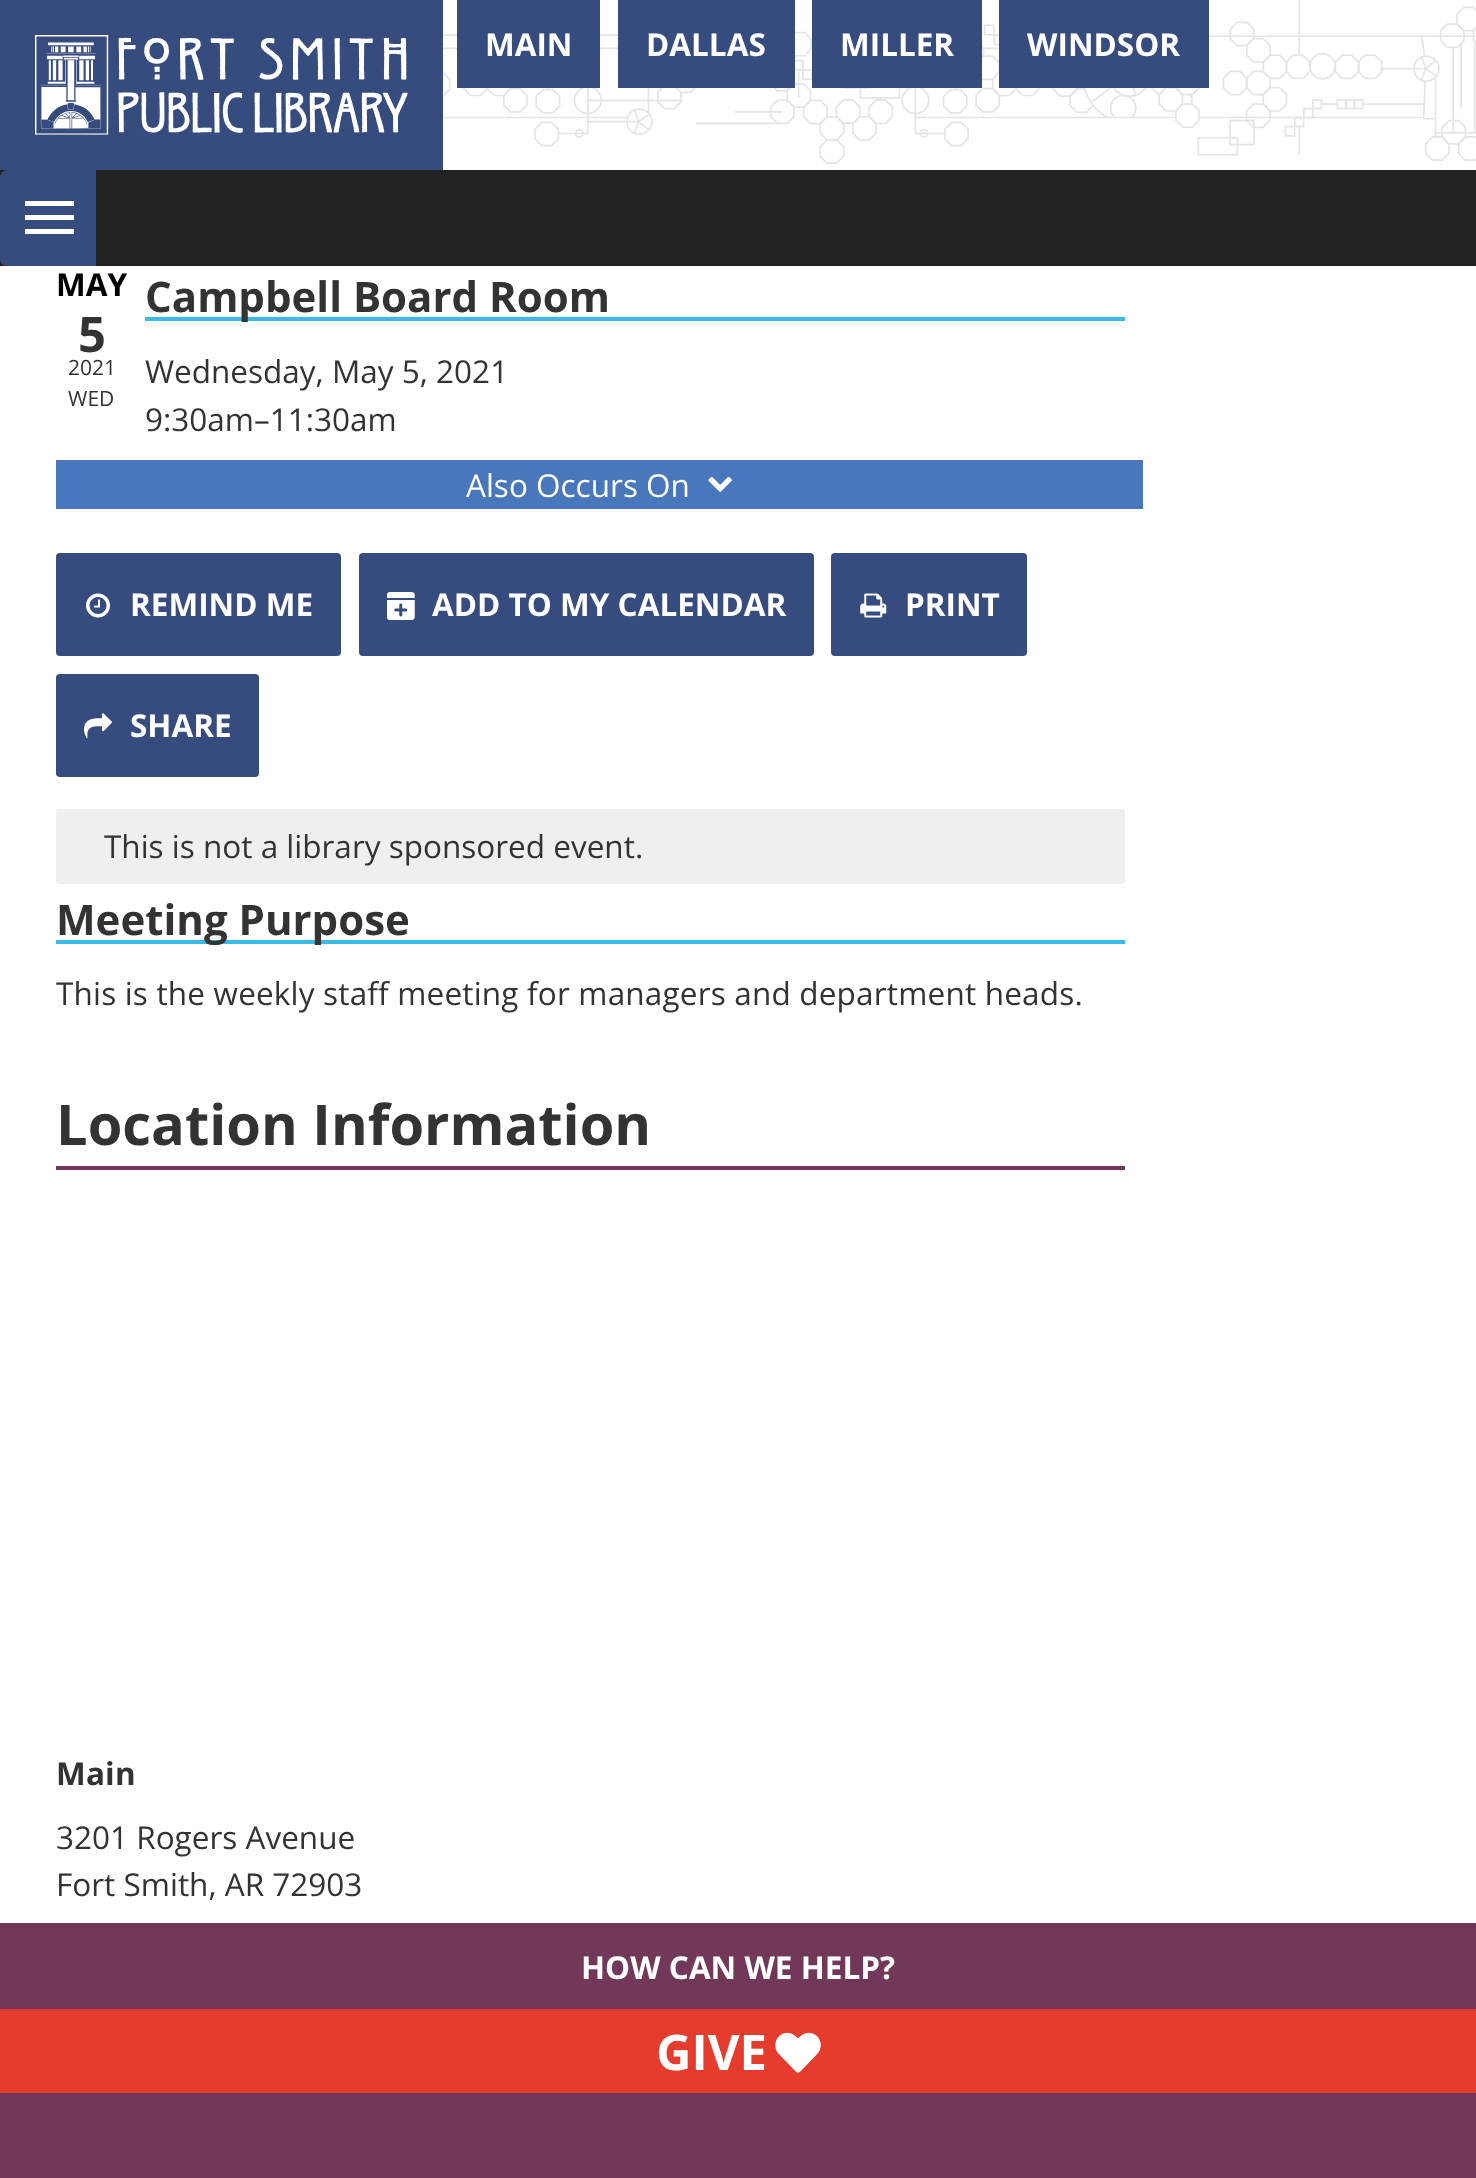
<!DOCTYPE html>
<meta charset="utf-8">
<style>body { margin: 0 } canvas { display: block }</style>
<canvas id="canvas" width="1476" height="2178"></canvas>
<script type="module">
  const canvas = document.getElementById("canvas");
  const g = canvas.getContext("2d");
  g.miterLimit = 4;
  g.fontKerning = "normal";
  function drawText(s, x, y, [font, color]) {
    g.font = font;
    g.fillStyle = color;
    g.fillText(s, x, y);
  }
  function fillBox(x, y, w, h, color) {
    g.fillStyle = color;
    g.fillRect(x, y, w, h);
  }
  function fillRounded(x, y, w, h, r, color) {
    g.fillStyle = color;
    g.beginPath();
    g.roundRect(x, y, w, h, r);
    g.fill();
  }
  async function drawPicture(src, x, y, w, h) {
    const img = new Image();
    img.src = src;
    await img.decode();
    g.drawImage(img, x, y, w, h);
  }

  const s1 = ["bold 31.5px Open Sans", "#FFFFFF"];
  const s2 = ["bold 31.5px Open Sans", "#000000"];
  const s3 = ["bold 49px Open Sans", "#333333"];
  const s4 = ["21px Open Sans", "#333333"];
  const s5 = ["bold 42px Open Sans", "#333333"];
  const s6 = ["31.5px Open Sans", "#333333"];
  const s7 = ["31.5px Open Sans", "#FFFFFF"];
  const s8 = ["bold 56px Open Sans", "#333333"];
  const s9 = ["bold 31.5px Open Sans", "#333333"];
  const s10 = ["bold 49px Open Sans", "#FFFFFF"];

  fillBox(0, 0, 1476, 2178, "#FFFFFF");
  await drawPicture("pic1.png", 443, 0, 1033, 164);
  fillBox(0, 0, 443, 170, "#374C7E");
  await drawPicture("pic2.png", 35, 35, 373, 100);
  fillBox(457, 0, 143, 88, "#374C7E");
  drawText("MAIN", 485, 56, s1);
  fillBox(618, 0, 177, 88, "#374C7E");
  drawText("DALLAS", 646, 56, s1);
  fillBox(812, 0, 170, 88, "#374C7E");
  drawText("MILLER", 840, 56, s1);
  fillBox(999, 0, 210, 88, "#374C7E");
  drawText("WINDSOR", 1027, 56, s1);
  fillBox(0, 170, 1476, 96, "#222222");
  g.fillStyle = "#374C7E";
  g.beginPath();
  g.roundRect(0, 170, 96, 96, [7, 0, 0, 7]);
  g.fill();
  fillBox(25, 201, 49, 5, "#FFFFFF");
  fillBox(25, 215, 49, 5, "#FFFFFF");
  fillBox(25, 229, 49, 5, "#FFFFFF");
  drawText("MAY", 56, 296, s2);
  drawText("5", 78, 352, s3);
  drawText("2021", 68, 375, s4);
  drawText("WED", 68, 406, s4);
  fillBox(145, 317, 980, 4, "#3EB8E5");
  drawText("Campbell Board Room", 145, 312, s5);
  drawText("Wednesday, May 5, 2021", 145, 383, s6);
  drawText("9:30am–11:30am", 145, 431, s6);
  fillBox(56, 460, 1087, 49, "#4877BB");
  drawText("Also Occurs On", 466, 497, s7);
  await drawPicture("pic3.png", 708, 476, 24, 16);
  fillRounded(56, 553, 285, 103, 4, "#374C7E");
  await drawPicture("pic4.png", 86, 593, 24, 25);
  drawText("REMIND ME", 130, 616, s1);
  fillRounded(359, 553, 455, 103, 4, "#374C7E");
  await drawPicture("pic5.png", 387, 592, 28, 28);
  drawText("ADD TO MY CALENDAR", 432, 616, s1);
  fillRounded(831, 553, 196, 103, 4, "#374C7E");
  await drawPicture("pic6.png", 860, 593, 27, 25);
  drawText("PRINT", 905, 616, s1);
  fillRounded(56, 674, 203, 103, 4, "#374C7E");
  await drawPicture("pic7.png", 84, 713, 28, 26);
  drawText("SHARE", 130, 737, s1);
  fillRounded(56, 809, 1069, 75, 4, "#EFEFEF");
  drawText("This is not a library sponsored event.", 104, 858, s6);
  fillBox(56, 940, 1069, 4, "#3EB8E5");
  drawText("Meeting Purpose", 56, 935, s5);
  g.letterSpacing = "0.18px";
  drawText("This is the weekly staff meeting for managers and department heads.", 56, 1005, s6);
  fillBox(56, 1166, 1069, 4, "#71385A");
  g.letterSpacing = "0px";
  drawText("Location Information", 56, 1145, s8);
  g.letterSpacing = "0.18px";
  drawText("Main", 56, 1785, s9);
  g.letterSpacing = "0px";
  drawText("3201 Rogers Avenue", 56, 1849, s6);
  drawText("Fort Smith, AR 72903", 56, 1896, s6);
  fillBox(0, 1923, 1476, 86, "#71385A");
  drawText("HOW CAN WE HELP?", 581, 1979, s1);
  fillBox(0, 2093, 1476, 85, "#71385A");
  fillBox(0, 2009, 1476, 84, "#E53C2D");
  drawText("GIVE", 656, 2070, s10);
  await drawPicture("pic8.png", 775, 2032, 46, 41);
</script>
